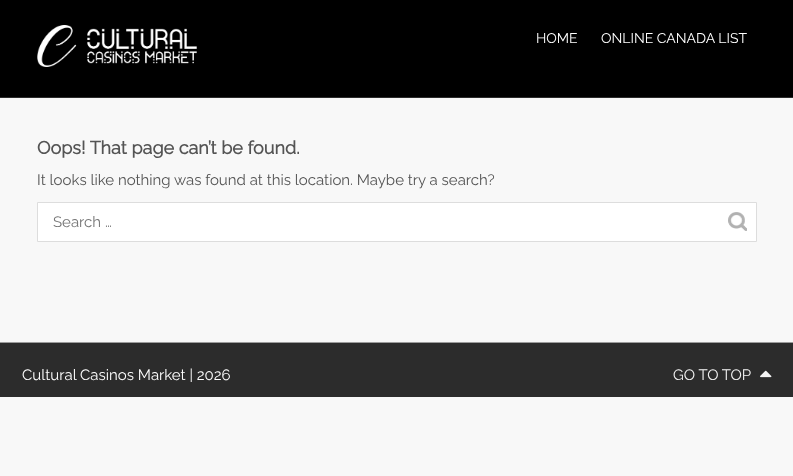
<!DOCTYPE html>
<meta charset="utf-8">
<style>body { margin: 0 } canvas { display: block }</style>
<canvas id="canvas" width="793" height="476"></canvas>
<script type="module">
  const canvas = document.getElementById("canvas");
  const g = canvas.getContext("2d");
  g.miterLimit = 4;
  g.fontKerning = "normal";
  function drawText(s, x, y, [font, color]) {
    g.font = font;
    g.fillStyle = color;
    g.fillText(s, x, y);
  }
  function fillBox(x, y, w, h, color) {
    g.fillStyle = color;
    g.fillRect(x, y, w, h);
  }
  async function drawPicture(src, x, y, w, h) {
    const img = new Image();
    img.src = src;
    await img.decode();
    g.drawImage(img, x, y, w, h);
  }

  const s1 = ["100 14px Raleway", "#FFFFFF"];
  const s2 = ["bold 18px Raleway", "#545454"];
  const s3 = ["100 15px Raleway", "#545454"];
  const s4 = ["100 15px Raleway", "#757575"];
  const s5 = ["100 15px Raleway", "#FFFFFF"];
  const s6 = ["100 15px Raleway", "#F4F4F4"];

  fillBox(0, 0, 793, 476, "#F8F8F8");
  fillBox(0, 0, 793, 97, "#000000");
  fillBox(0, 97, 793, 1, "#2C2C2C");
  await drawPicture("pic1.png", 37, 25, 160, 42);
  drawText("HOME", 536, 43, s1);
  drawText("ONLINE CANADA LIST", 601, 43, s1);
  drawText("Oops! That page can’t be found.", 37, 154, s2);
  drawText("It looks like nothing was found at this location. Maybe try a search?", 37, 185, s3);
  g.fillStyle = "#FFFFFF";
  g.beginPath();
  g.rect(37.5, 202.5, 719, 39);
  g.fill();
  g.strokeStyle = "#DDDDDD";
  g.stroke();
  drawText("Search …", 53, 227, s4);
  await drawPicture("pic2.png", 728, 212, 19, 19);
  fillBox(0, 343, 793, 54, "#2C2C2C");
  fillBox(0, 342, 793, 1, "#9C9C9C");
  drawText("Cultural Casinos Market | 2026", 22, 380, s5);
  drawText("GO TO TOP", 673, 380, s6);
  await drawPicture("pic3.png", 760, 370, 12, 8);
</script>
